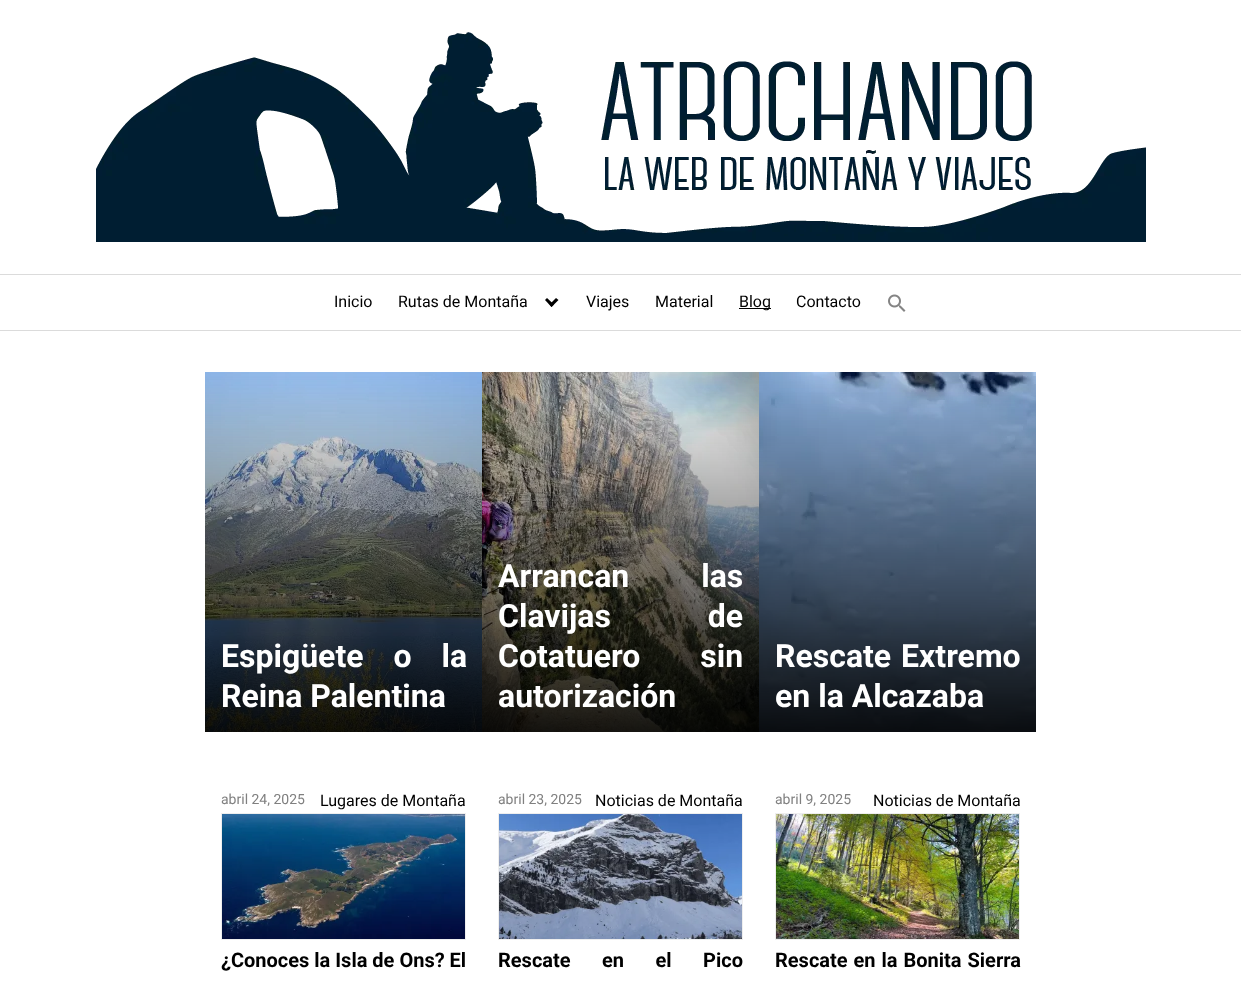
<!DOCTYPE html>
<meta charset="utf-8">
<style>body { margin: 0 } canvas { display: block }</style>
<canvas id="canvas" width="1241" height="984"></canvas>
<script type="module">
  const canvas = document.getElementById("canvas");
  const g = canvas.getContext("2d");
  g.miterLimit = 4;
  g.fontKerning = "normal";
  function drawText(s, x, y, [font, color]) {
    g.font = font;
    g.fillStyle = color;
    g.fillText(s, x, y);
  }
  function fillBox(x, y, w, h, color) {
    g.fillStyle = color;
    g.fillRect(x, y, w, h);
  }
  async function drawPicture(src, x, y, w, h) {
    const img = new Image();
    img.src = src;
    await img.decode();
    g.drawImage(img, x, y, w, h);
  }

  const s1 = ["16px Roboto", "#000000"];
  const s2 = ["bold 32px Roboto", "#FFFFFF"];
  const s3 = ["14px Roboto", "#808080"];
  const s4 = ["bold 20px Roboto", "#000000"];

  fillBox(0, 0, 1241, 984, "#FFFFFF");
  fillBox(0, 274, 1241, 1, "#DBDBDB");
  await drawPicture("pic1.png", 96, 32, 1050, 210);
  fillBox(0, 330, 1241, 1, "#DBDBDB");
  drawText("Inicio", 334, 307, s1);
  drawText("Rutas de Montaña", 398, 307, s1);
  g.beginPath();
  g.moveTo(545, 300);
  g.lineTo(547, 298);
  g.lineTo(554, 304.5);
  g.lineTo(551.5, 307);
  g.closePath();
  g.fill();
  g.beginPath();
  g.moveTo(549.5, 304.5);
  g.lineTo(556, 298);
  g.lineTo(558.5, 300);
  g.lineTo(551.5, 307);
  g.closePath();
  g.fill();
  drawText("Viajes", 586, 307, s1);
  drawText("Material", 655, 307, s1);
  fillBox(739, 308, 32, 1, "#000000");
  drawText("Blog", 739, 307, s1);
  drawText("Contacto", 796, 307, s1);
  await drawPicture("pic2.png", 888, 294, 18, 18);
  await drawPicture("pic3.png", 205, 372, 277, 360);
  g.wordSpacing = "22px";
  drawText("Espigüete o la", 221, 667, s2);
  g.wordSpacing = "0px";
  drawText("Reina Palentina", 221, 707, s2);
  await drawPicture("pic4.png", 482, 372, 277, 360);
  g.wordSpacing = "64px";
  drawText("Arrancan las", 498, 587, s2);
  g.wordSpacing = "89px";
  drawText("Clavijas de", 498, 627, s2);
  g.wordSpacing = "52px";
  drawText("Cotatuero sin", 498, 667, s2);
  g.wordSpacing = "0px";
  drawText("autorización", 498, 707, s2);
  await drawPicture("pic5.png", 759, 372, 277, 360);
  g.wordSpacing = "2px";
  drawText("Rescate Extremo", 775, 667, s2);
  g.wordSpacing = "0px";
  drawText("en la Alcazaba", 775, 707, s2);
  drawText("abril 24, 2025", 221, 804, s3);
  drawText("Lugares de Montaña", 320, 806, s1);
  g.strokeStyle = "#EEEEEE";
  g.strokeRect(221.5, 813.5, 244, 126);
  await drawPicture("pic6.png", 222, 814, 243, 125);
  drawText("¿Conoces la Isla de Ons? El", 221, 967, s4);
  drawText("abril 23, 2025", 498, 804, s3);
  drawText("Noticias de Montaña", 595, 806, s1);
  g.strokeRect(498.5, 813.5, 244, 126);
  await drawPicture("pic7.png", 499, 814, 243, 125);
  g.wordSpacing = "26.5px";
  drawText("Rescate en el Pico", 498, 967, s4);
  g.wordSpacing = "0px";
  drawText("abril 9, 2025", 775, 804, s3);
  drawText("Noticias de Montaña", 873, 806, s1);
  g.strokeRect(775.5, 813.5, 244, 126);
  await drawPicture("pic8.png", 776, 814, 243, 125);
  g.wordSpacing = "1px";
  drawText("Rescate en la Bonita Sierra", 775, 967, s4);
</script>
